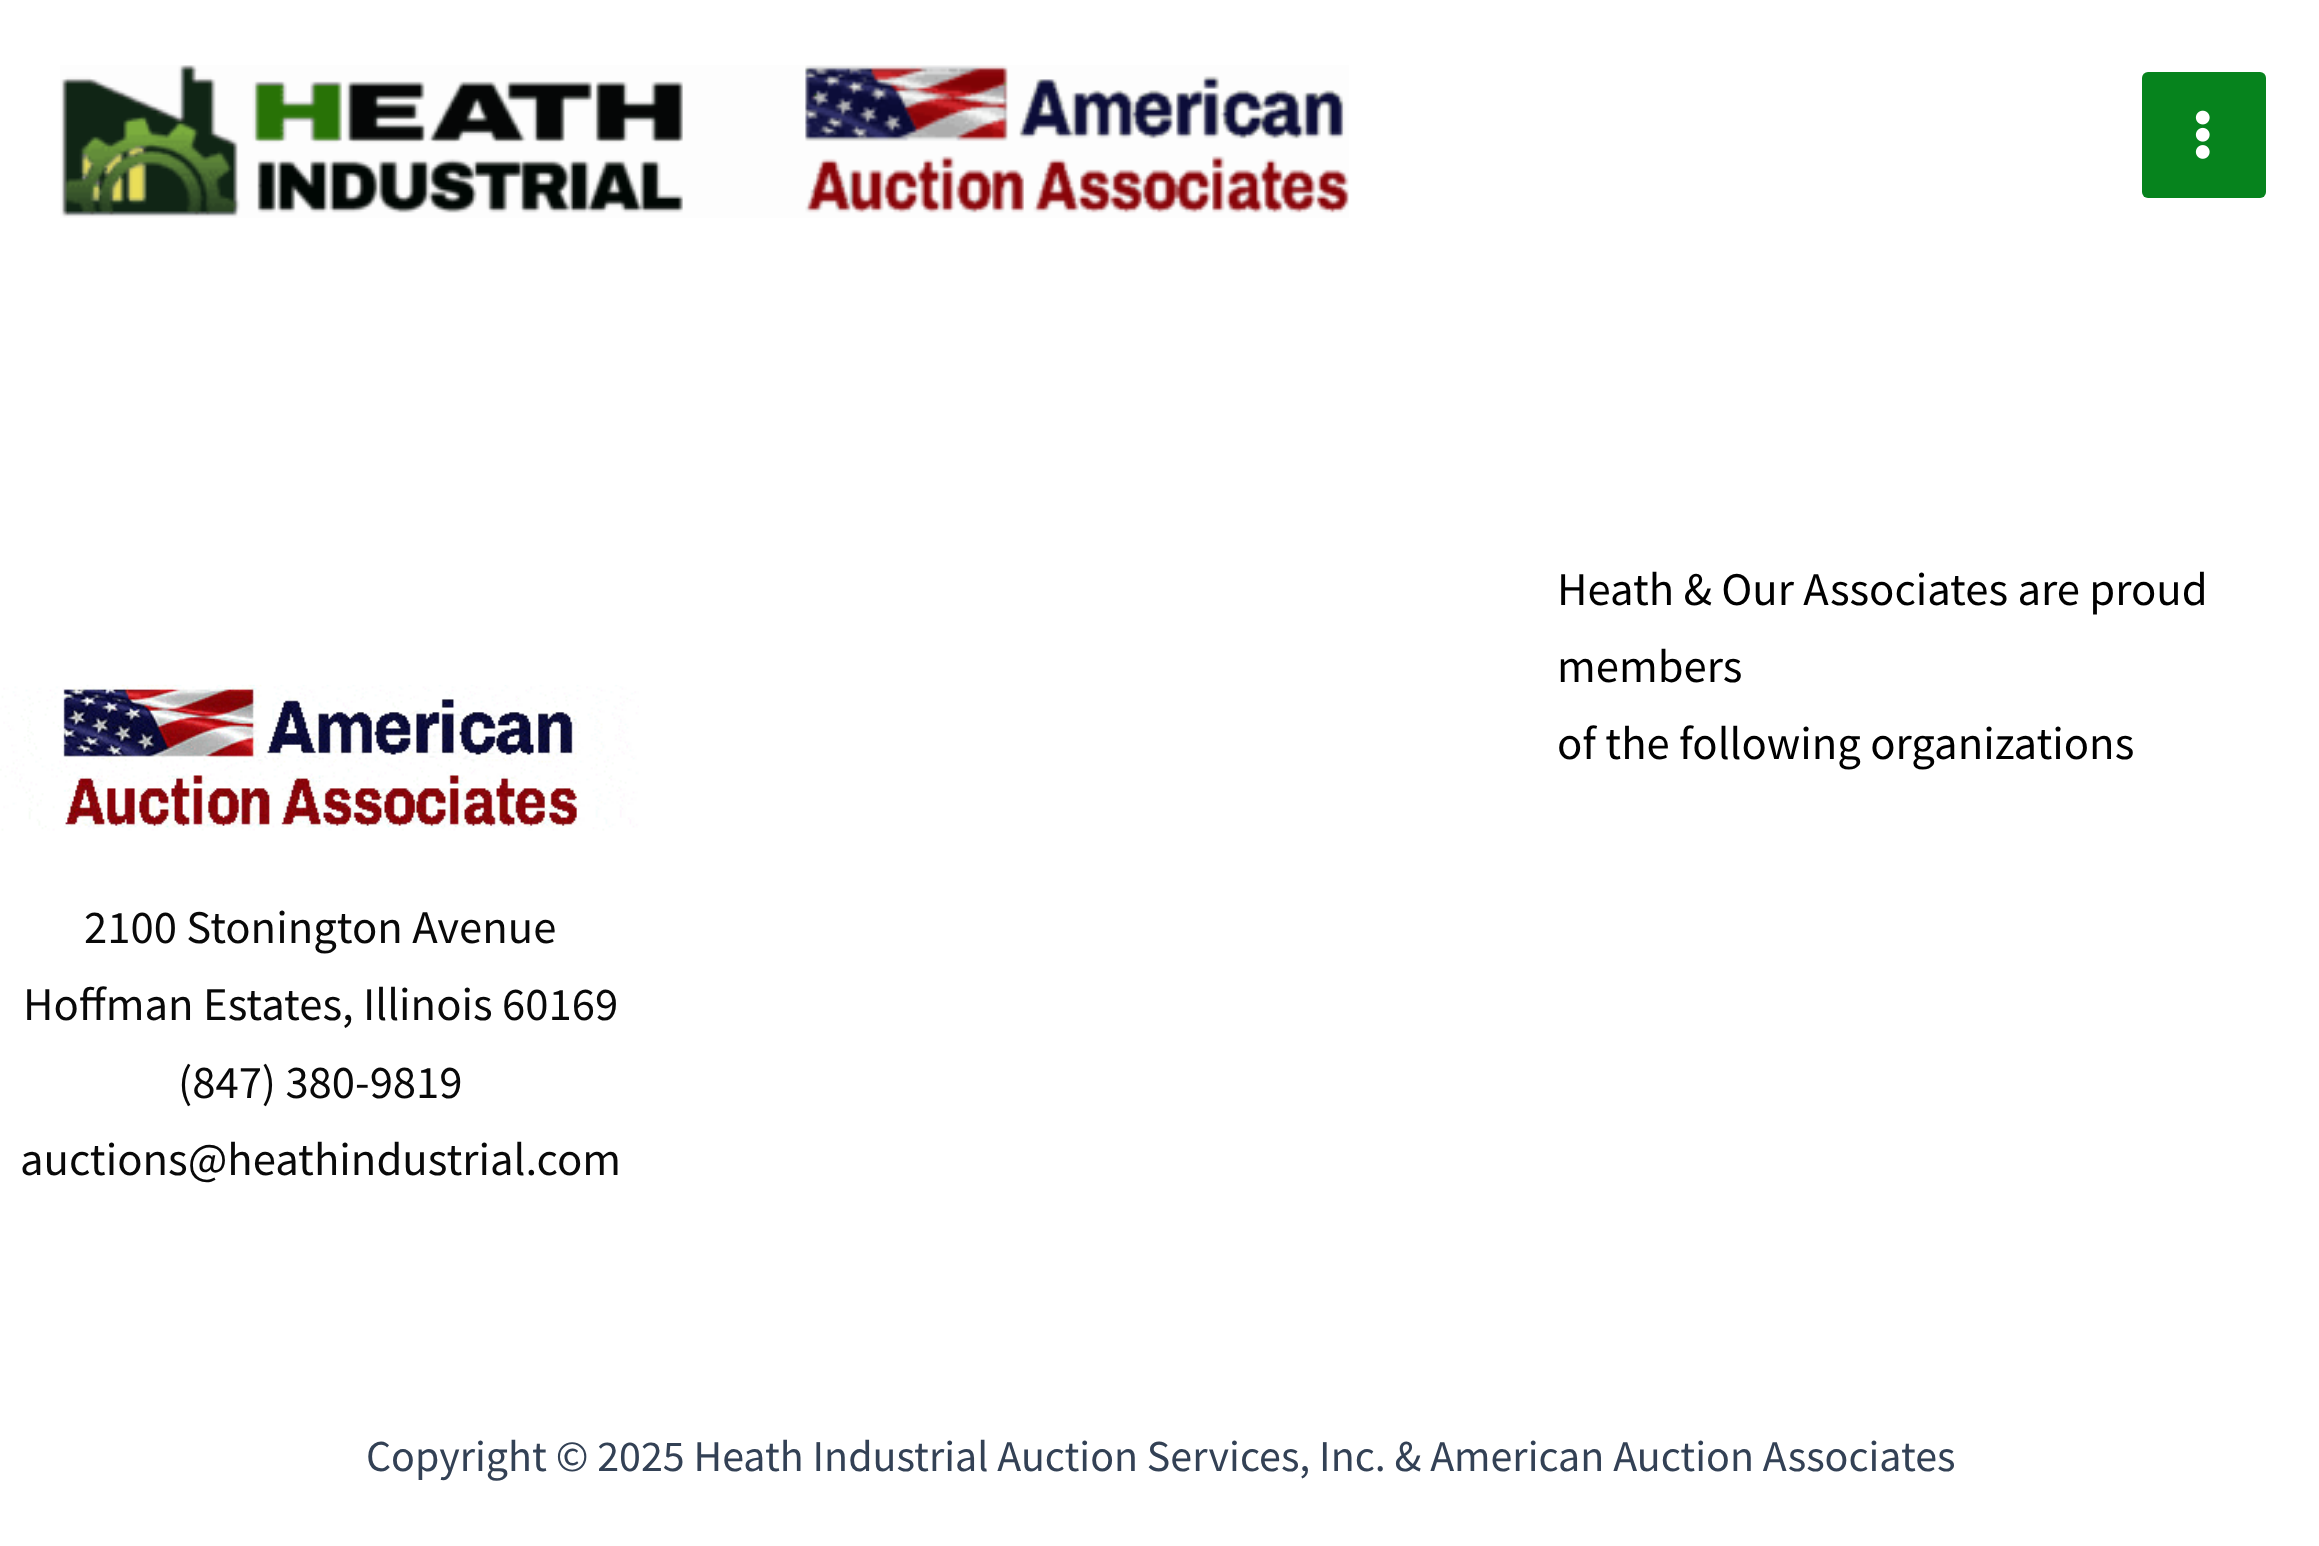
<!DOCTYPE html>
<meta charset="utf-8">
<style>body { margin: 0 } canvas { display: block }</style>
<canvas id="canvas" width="2319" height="1546"></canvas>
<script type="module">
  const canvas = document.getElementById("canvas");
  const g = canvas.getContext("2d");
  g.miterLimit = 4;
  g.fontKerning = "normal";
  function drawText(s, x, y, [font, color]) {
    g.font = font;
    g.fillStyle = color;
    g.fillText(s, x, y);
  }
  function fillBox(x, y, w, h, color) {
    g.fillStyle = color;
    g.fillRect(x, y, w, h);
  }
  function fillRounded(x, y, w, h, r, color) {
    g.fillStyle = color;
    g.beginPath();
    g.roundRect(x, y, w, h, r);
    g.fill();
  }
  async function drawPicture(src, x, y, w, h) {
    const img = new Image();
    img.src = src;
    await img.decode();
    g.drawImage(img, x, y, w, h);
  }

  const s1 = ["46.75px Source Sans Pro", "#000000"];
  const s2 = ["46.75px Source Sans Pro", "#090909"];
  const s3 = ["44px Source Sans Pro", "#334155"];

  fillBox(0, 0, 2319, 1546, "#FFFFFF");
  await drawPicture("pic1.png", 60, 65, 1289, 153);
  fillRounded(2142, 72, 124, 126, 6, "#06831D");
  await drawPicture("pic2.png", 2195, 110, 15, 49);
  drawText("Heath & Our Associates are proud", 1557, 605, s1);
  drawText("members", 1557, 682, s1);
  drawText("of the following organizations", 1557, 759, s1);
  await drawPicture("pic3.png", 0, 684, 639, 147);
  drawText("2100 Stonington Avenue", 84, 943, s2);
  drawText("Hoffman Estates, Illinois 60169", 23, 1020, s2);
  drawText("(847) 380-9819", 178, 1098, s2);
  drawText("auctions@heathindustrial.com", 20, 1175, s2);
  drawText("Copyright © 2025 Heath Industrial Auction Services, Inc. & American Auction Associates", 366, 1471, s3);
</script>
